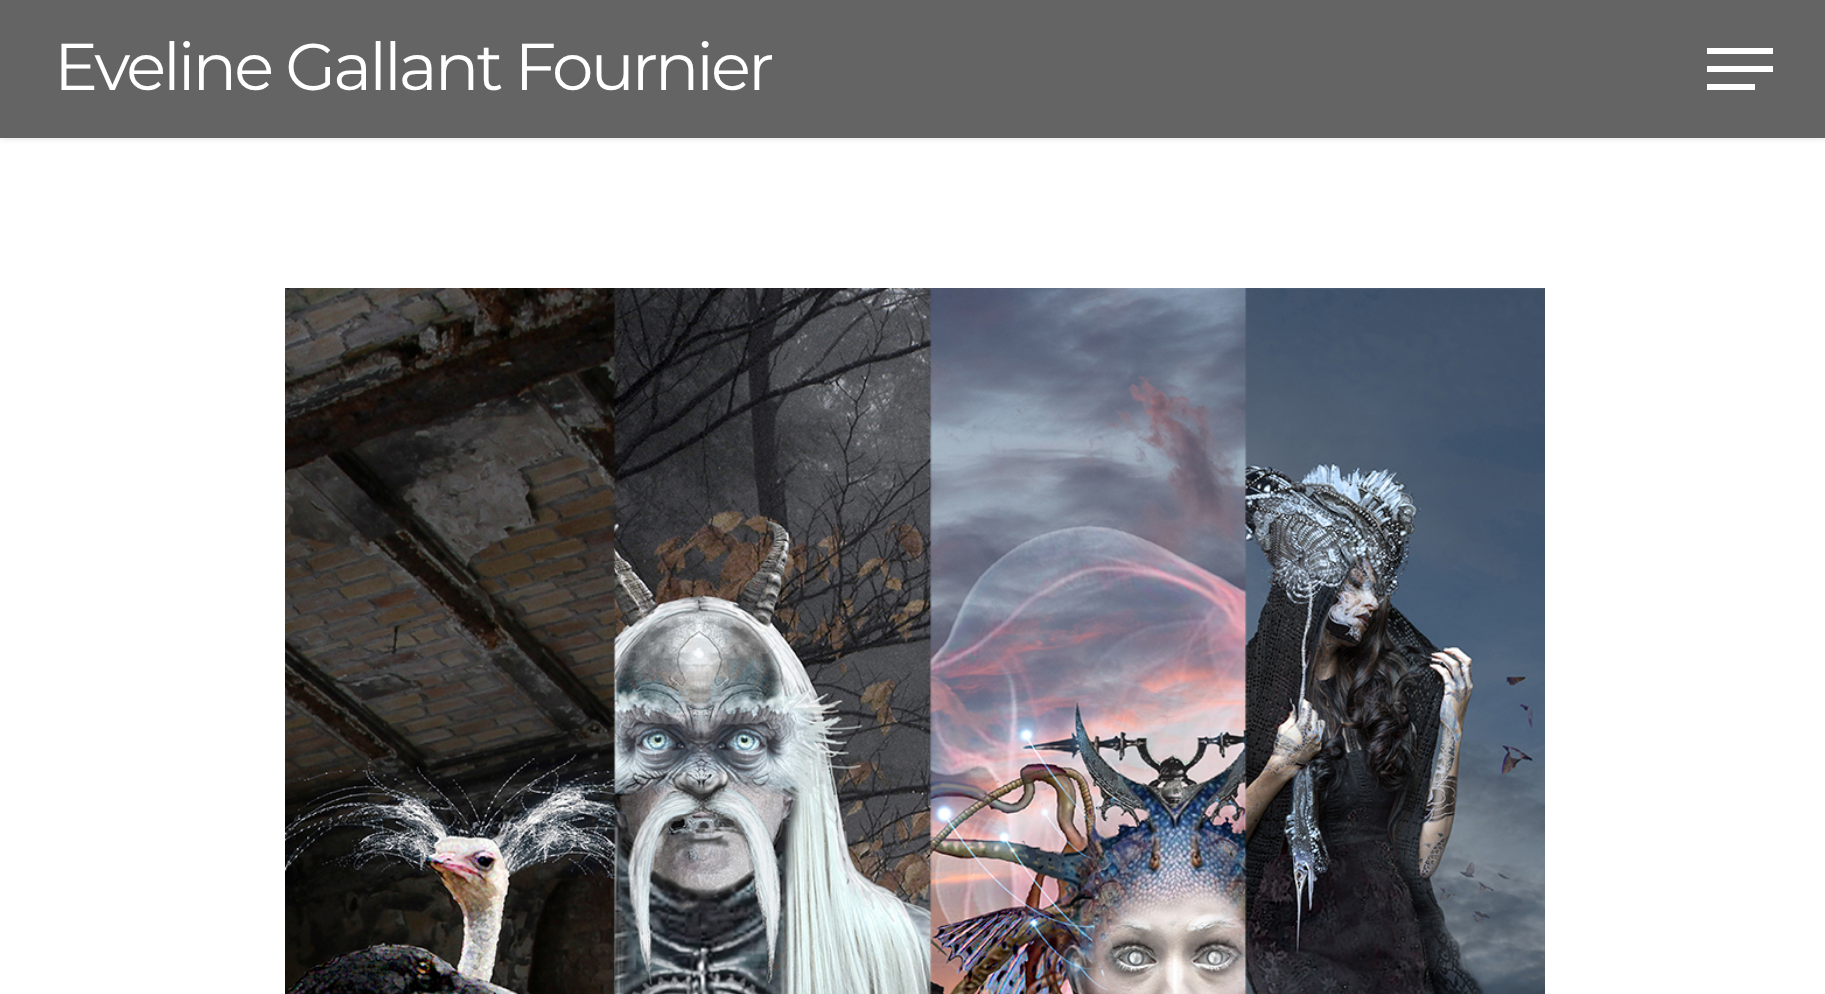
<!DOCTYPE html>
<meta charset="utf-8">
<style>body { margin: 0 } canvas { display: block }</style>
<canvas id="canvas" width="1825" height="994"></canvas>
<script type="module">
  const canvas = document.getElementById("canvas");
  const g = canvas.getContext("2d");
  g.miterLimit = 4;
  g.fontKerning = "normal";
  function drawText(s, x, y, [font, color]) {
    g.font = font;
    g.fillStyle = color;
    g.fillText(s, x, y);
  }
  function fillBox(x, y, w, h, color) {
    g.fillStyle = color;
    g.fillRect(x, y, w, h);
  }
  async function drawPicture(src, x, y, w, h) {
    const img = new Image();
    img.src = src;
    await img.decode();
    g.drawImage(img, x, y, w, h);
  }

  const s1 = ["66px Montserrat", "#FFFFFF"];

  fillBox(0, 0, 1825, 994, "#FFFFFF");
  g.fillStyle = "rgba(0, 0, 0, 0.14)";
  g.filter = "blur(3px)";
  g.beginPath();
  g.rect(0, 0, 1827, 138);
  g.fill();
  g.filter = "none";
  fillBox(0, 0, 1825, 138, "#646464");
  g.letterSpacing = "-3px";
  drawText("Eveline Gallant Fournier", 54, 90, s1);
  fillBox(1707, 48, 66, 6, "#FFFFFF");
  fillBox(1707, 84, 48, 6, "#FFFFFF");
  fillBox(1707, 66, 66, 6, "#FFFFFF");
  await drawPicture("pic1.png", 285, 288, 1260, 706);
</script>
